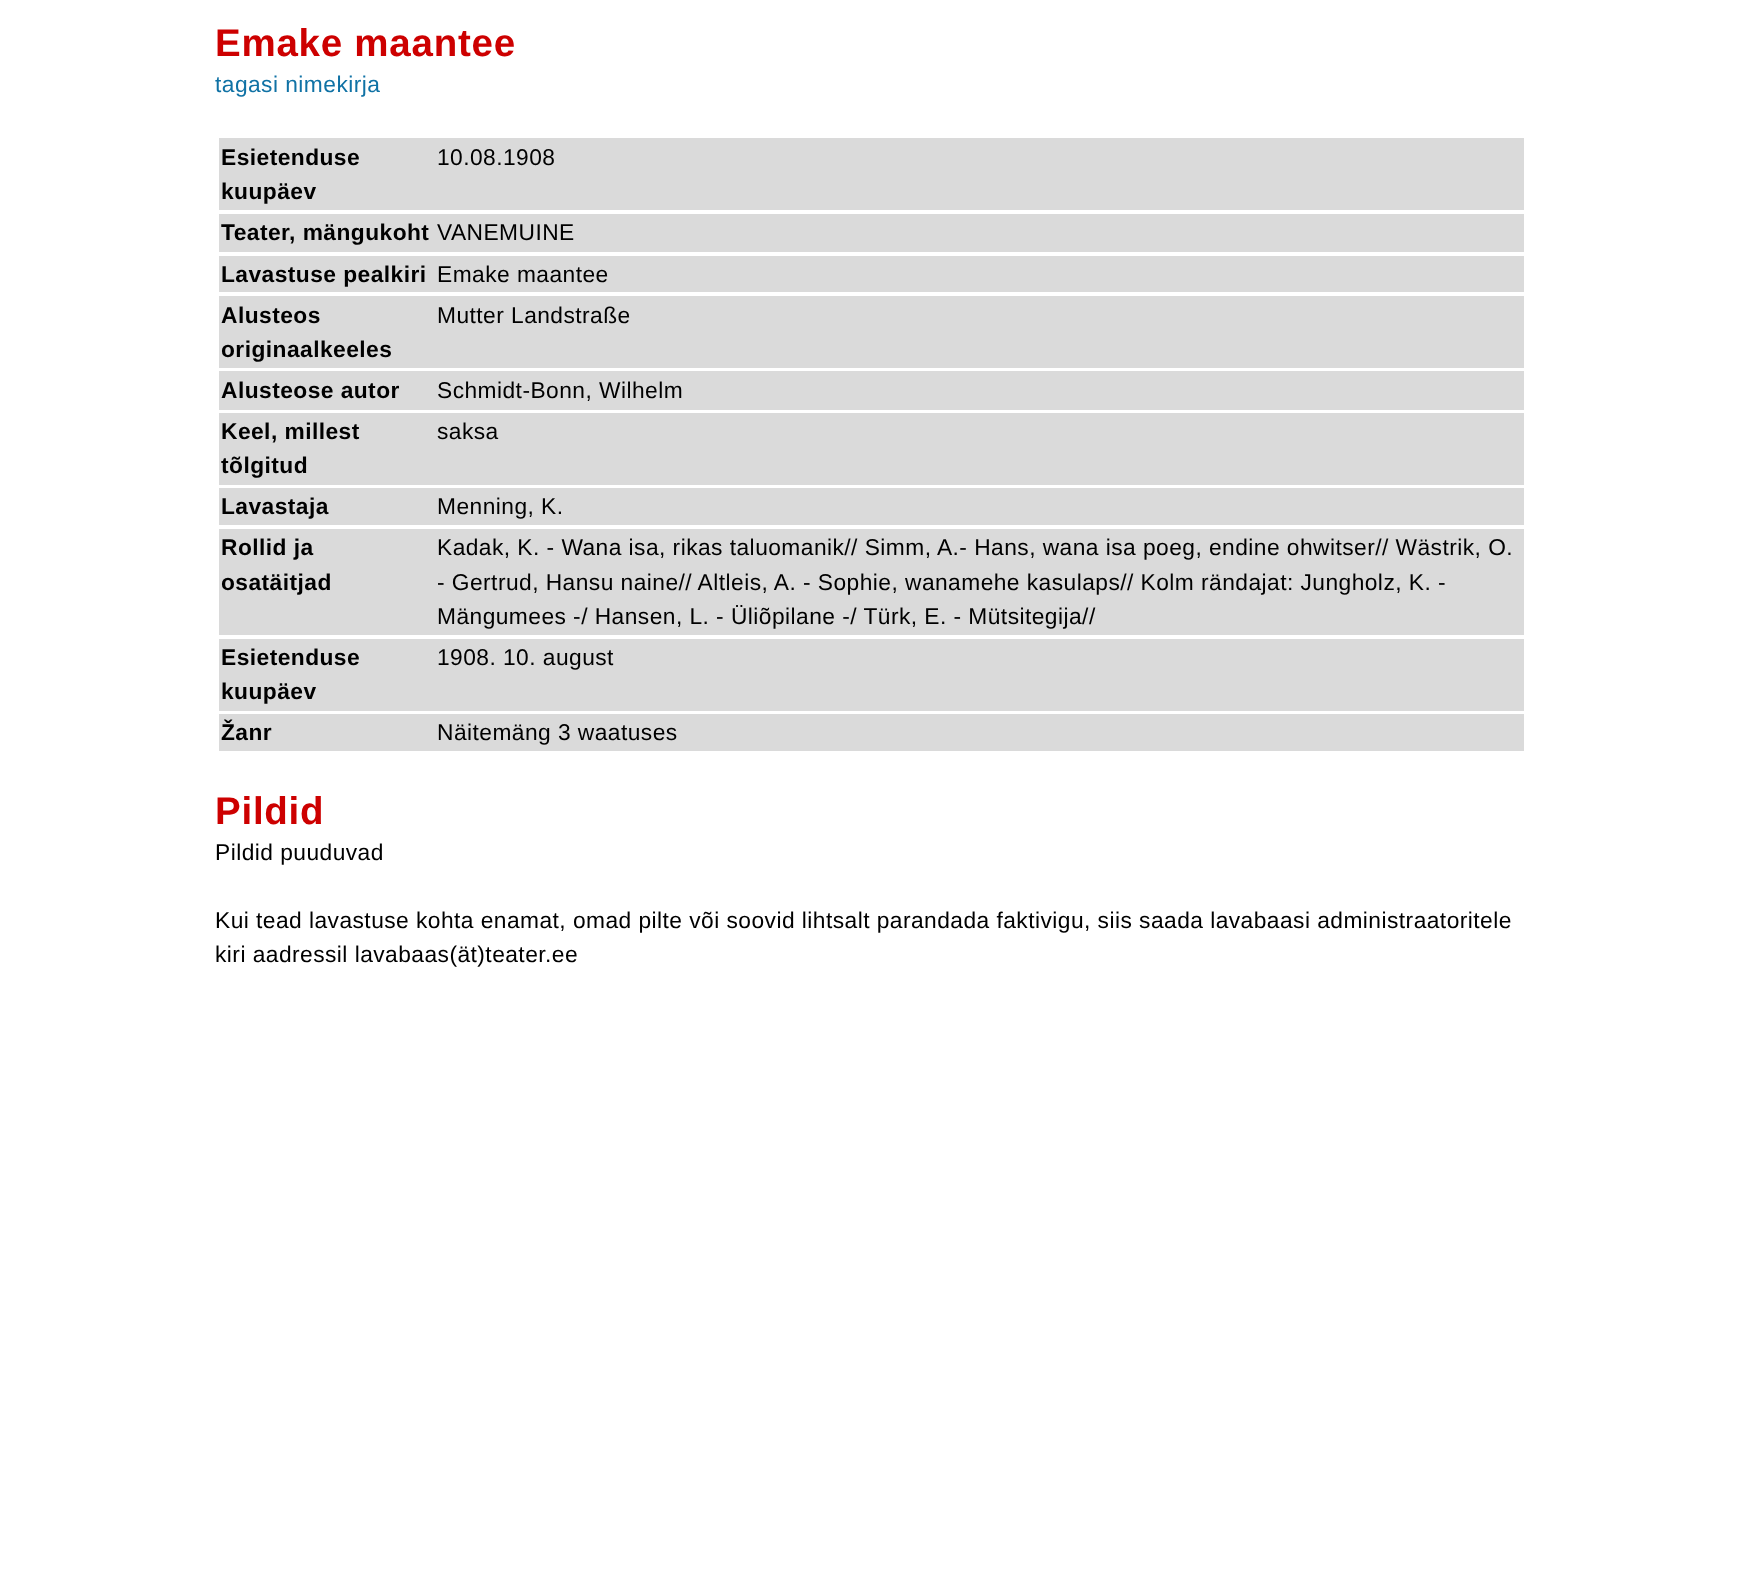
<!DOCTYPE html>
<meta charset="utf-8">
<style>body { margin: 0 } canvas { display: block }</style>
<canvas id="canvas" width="1743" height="1570"></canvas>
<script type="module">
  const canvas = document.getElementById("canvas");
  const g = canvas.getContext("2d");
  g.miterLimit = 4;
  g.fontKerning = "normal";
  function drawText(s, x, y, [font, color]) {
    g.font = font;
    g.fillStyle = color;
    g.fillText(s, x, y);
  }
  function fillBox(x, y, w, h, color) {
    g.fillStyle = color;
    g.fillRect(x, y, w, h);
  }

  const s1 = ["bold 38.5px Liberation Sans", "#CD0000"];
  const s2 = ["22.75px Liberation Sans", "#1072A5"];
  const s3 = ["bold 22.75px Liberation Sans", "#000000"];
  const s4 = ["22.75px Liberation Sans", "#000000"];

  fillBox(0, 0, 1743, 1570, "#FFFFFF");
  g.letterSpacing = "0.75px";
  drawText("Emake maantee", 215, 56, s1);
  g.letterSpacing = "0.46px";
  drawText("tagasi nimekirja", 215, 92, s2);
  fillBox(219, 138, 1305, 72, "#DADADA");
  drawText("Esietenduse", 221, 165, s3);
  drawText("kuupäev", 221, 199, s3);
  drawText("10.08.1908", 437, 165, s4);
  fillBox(219, 214, 1305, 38, "#DADADA");
  drawText("Teater, mängukoht", 221, 240, s3);
  drawText("VANEMUINE", 437, 240, s4);
  fillBox(219, 256, 1305, 36, "#DADADA");
  drawText("Lavastuse pealkiri", 221, 282, s3);
  drawText("Emake maantee", 437, 282, s4);
  fillBox(219, 296, 1305, 72, "#DADADA");
  drawText("Alusteos", 221, 323, s3);
  drawText("originaalkeeles", 221, 357, s3);
  drawText("Mutter Landstraße", 437, 323, s4);
  fillBox(219, 371, 1305, 39, "#DADADA");
  drawText("Alusteose autor", 221, 398, s3);
  drawText("Schmidt-Bonn, Wilhelm", 437, 398, s4);
  fillBox(219, 413, 1305, 72, "#DADADA");
  drawText("Keel, millest", 221, 439, s3);
  drawText("tõlgitud", 221, 473, s3);
  drawText("saksa", 437, 439, s4);
  fillBox(219, 488, 1305, 37, "#DADADA");
  drawText("Lavastaja", 221, 514, s3);
  drawText("Menning, K.", 437, 514, s4);
  fillBox(219, 529, 1305, 106, "#DADADA");
  drawText("Rollid ja", 221, 555, s3);
  drawText("osatäitjad", 221, 590, s3);
  drawText("Kadak, K. - Wana isa, rikas taluomanik// Simm, A.- Hans, wana isa poeg, endine ohwitser// Wästrik, O.", 437, 555, s4);
  drawText("- Gertrud, Hansu naine// Altleis, A. - Sophie, wanamehe kasulaps// Kolm rändajat: Jungholz, K. -", 437, 590, s4);
  drawText("Mängumees -/ Hansen, L. - Üliõpilane -/ Türk, E. - Mütsitegija//", 437, 624, s4);
  fillBox(219, 639, 1305, 72, "#DADADA");
  drawText("Esietenduse", 221, 665, s3);
  drawText("kuupäev", 221, 699, s3);
  drawText("1908. 10. august", 437, 665, s4);
  fillBox(219, 714, 1305, 37, "#DADADA");
  drawText("Žanr", 221, 740, s3);
  drawText("Näitemäng 3 waatuses", 437, 740, s4);
  g.letterSpacing = "0.75px";
  drawText("Pildid", 215, 824, s1);
  g.letterSpacing = "0.46px";
  drawText("Pildid puuduvad", 215, 860, s4);
  drawText("Kui tead lavastuse kohta enamat, omad pilte või soovid lihtsalt parandada faktivigu, siis saada lavabaasi administraatoritele", 215, 928, s4);
  drawText("kiri aadressil lavabaas(ät)teater.ee", 215, 962, s4);
</script>
